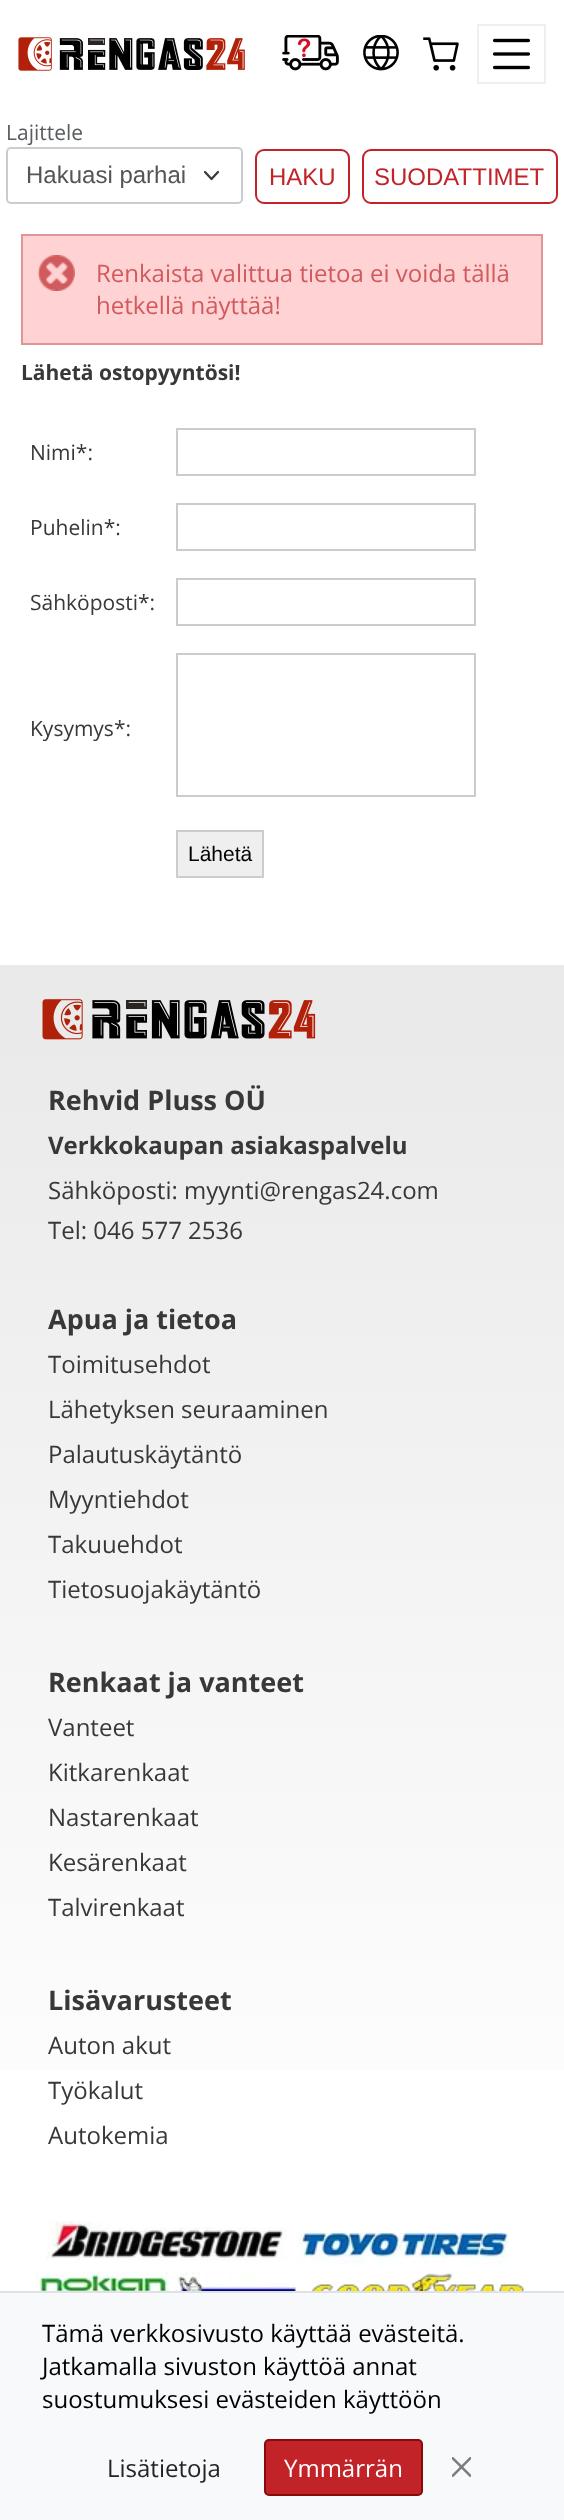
<!DOCTYPE html>
<meta charset="utf-8">
<style>body { margin: 0 } canvas { display: block }</style>
<canvas id="canvas" width="564" height="2520"></canvas>
<script type="module">
  const canvas = document.getElementById("canvas");
  const g = canvas.getContext("2d");
  g.miterLimit = 4;
  g.fontKerning = "normal";
  function drawText(s, x, y, [font, color]) {
    g.font = font;
    g.fillStyle = color;
    g.fillText(s, x, y);
  }
  function fillBox(x, y, w, h, color) {
    g.fillStyle = color;
    g.fillRect(x, y, w, h);
  }
  async function drawPicture(src, x, y, w, h) {
    const img = new Image();
    img.src = src;
    await img.decode();
    g.drawImage(img, x, y, w, h);
  }
  let gradient;

  const s1 = ["21px Open Sans", "#595C5F"];
  const s2 = ["24px Liberation Sans", "#555555"];
  const s3 = ["24px Liberation Sans", "#C12328"];
  const s4 = ["24px Open Sans", "#D05A5C"];
  const s5 = ["bold 21px Open Sans", "#383838"];
  const s6 = ["21px Open Sans", "#383838"];
  const s7 = ["21px Liberation Sans", "#000000"];
  const s8 = ["bold 27px Open Sans", "#383838"];
  const s9 = ["bold 24px Open Sans", "#383838"];
  const s10 = ["24px Open Sans", "#383838"];
  const s11 = ["24px Open Sans", "#000000"];
  const s12 = ["24px Open Sans", "#212529"];
  const s13 = ["24px Open Sans", "#FFFFFF"];

  fillBox(0, 0, 564, 2520, "#FFFFFF");
  await drawPicture("pic1.png", 18, 37, 227, 34);
  await drawPicture("pic2.png", 282, 35, 57, 36);
  await drawPicture("pic3.png", 363, 35, 36, 36);
  await drawPicture("pic4.png", 423, 37, 36, 34);
  g.strokeStyle = "#EFEFEF";
  g.lineWidth = 2;
  g.strokeRect(478, 25, 67, 58);
  await drawPicture("pic5.png", 493, 38, 37, 32);
  drawText("Lajittele", 6, 140, s1);
  g.beginPath();
  g.moveTo(205, 172);
  g.lineTo(211.5, 179);
  g.lineTo(218, 172);
  g.strokeStyle = "#343A40";
  g.lineWidth = 2.2;
  g.lineCap = "round";
  g.lineJoin = "round";
  g.stroke();
  g.beginPath();
  g.roundRect(7, 148, 235, 55, 4);
  g.strokeStyle = "#CCCCCC";
  g.lineWidth = 2;
  g.lineJoin = "miter";
  g.stroke();
  drawText("Hakuasi parhai", 26, 183, s2);
  g.beginPath();
  g.roundRect(256, 150, 93, 53, 8);
  g.strokeStyle = "#C12328";
  g.stroke();
  drawText("HAKU", 269, 185, s3);
  g.beginPath();
  g.roundRect(363, 150, 194, 53, 8);
  g.stroke();
  drawText("SUODATTIMET", 374, 185, s3);
  fillBox(23, 236, 518, 107, "#FFD2D3");
  await drawPicture("pic6.png", 37, 255, 38, 36);
  g.strokeStyle = "#DF9596";
  g.strokeRect(22, 235, 520, 109);
  drawText("Renkaista valittua tietoa ei voida tällä", 96, 282, s4);
  drawText("hetkellä näyttää!", 96, 314, s4);
  drawText("Lähetä ostopyyntösi!", 21, 380, s5);
  drawText("Nimi*:", 30, 460, s6);
  g.strokeStyle = "#CCCCCC";
  g.strokeRect(177, 429, 298, 46);
  drawText("Puhelin*:", 30, 535, s6);
  g.strokeRect(177, 504, 298, 46);
  drawText("Sähköposti*:", 30, 610, s6);
  g.strokeRect(177, 579, 298, 46);
  drawText("Kysymys*:", 30, 736, s6);
  g.strokeRect(177, 654, 298, 142);
  g.fillStyle = "#EFEFEF";
  g.beginPath();
  g.rect(177, 831, 86, 46);
  g.fill();
  g.stroke();
  drawText("Lähetä", 188, 861, s7);
  gradient = g.createLinearGradient(282, 965, 282, 2211);
  gradient.addColorStop(0.05, "#EAEAEA");
  gradient.addColorStop(1, "#FFFFFF");
  g.fillStyle = gradient;
  g.fillRect(0, 965, 564, 1105);
  await drawPicture("pic7.png", 42, 999, 274, 41);
  drawText("Rehvid Pluss OÜ", 48, 1110, s8);
  drawText("Verkkokaupan asiakaspalvelu", 48, 1154, s9);
  drawText("Sähköposti: myynti@rengas24.com", 48, 1199, s10);
  drawText("Tel: 046 577 2536", 48, 1239, s10);
  drawText("Apua ja tietoa", 48, 1329, s8);
  drawText("Toimitusehdot", 48, 1373, s10);
  drawText("Lähetyksen seuraaminen", 48, 1418, s10);
  drawText("Palautuskäytäntö", 48, 1463, s10);
  drawText("Myyntiehdot", 48, 1508, s10);
  drawText("Takuuehdot", 48, 1553, s10);
  drawText("Tietosuojakäytäntö", 48, 1598, s10);
  drawText("Renkaat ja vanteet", 48, 1692, s8);
  drawText("Vanteet", 48, 1736, s10);
  drawText("Kitkarenkaat", 48, 1781, s10);
  drawText("Nastarenkaat", 48, 1826, s10);
  drawText("Kesärenkaat", 48, 1871, s10);
  drawText("Talvirenkaat", 48, 1916, s10);
  drawText("Lisävarusteet", 48, 2010, s8);
  drawText("Auton akut", 48, 2054, s10);
  drawText("Työkalut", 48, 2099, s10);
  drawText("Autokemia", 48, 2144, s10);
  await drawPicture("pic8.png", 46, 2221, 241, 40);
  await drawPicture("pic9.png", 298, 2231, 211, 35);
  await drawPicture("pic10.png", 36, 2272, 133, 19);
  await drawPicture("pic11.png", 175, 2272, 122, 19);
  await drawPicture("pic12.png", 311, 2273, 213, 18);
  fillBox(0, 2293, 564, 227, "#F8F9FA");
  fillBox(0, 2291, 564, 2, "#DEE2E6");
  drawText("Tämä verkkosivusto käyttää evästeitä.", 42, 2342, s11);
  drawText("Jatkamalla sivuston käyttöä annat", 42, 2375, s11);
  drawText("suostumuksesi evästeiden käyttöön", 42, 2408, s11);
  drawText("Lisätietoja", 107, 2477, s12);
  g.fillStyle = "#C12328";
  g.beginPath();
  g.roundRect(265, 2440, 157, 55, 4);
  g.fill();
  g.strokeStyle = "#880A0A";
  g.stroke();
  drawText("Ymmärrän", 284, 2477, s13);
  await drawPicture("pic13.png", 452, 2457, 19, 20);
</script>
